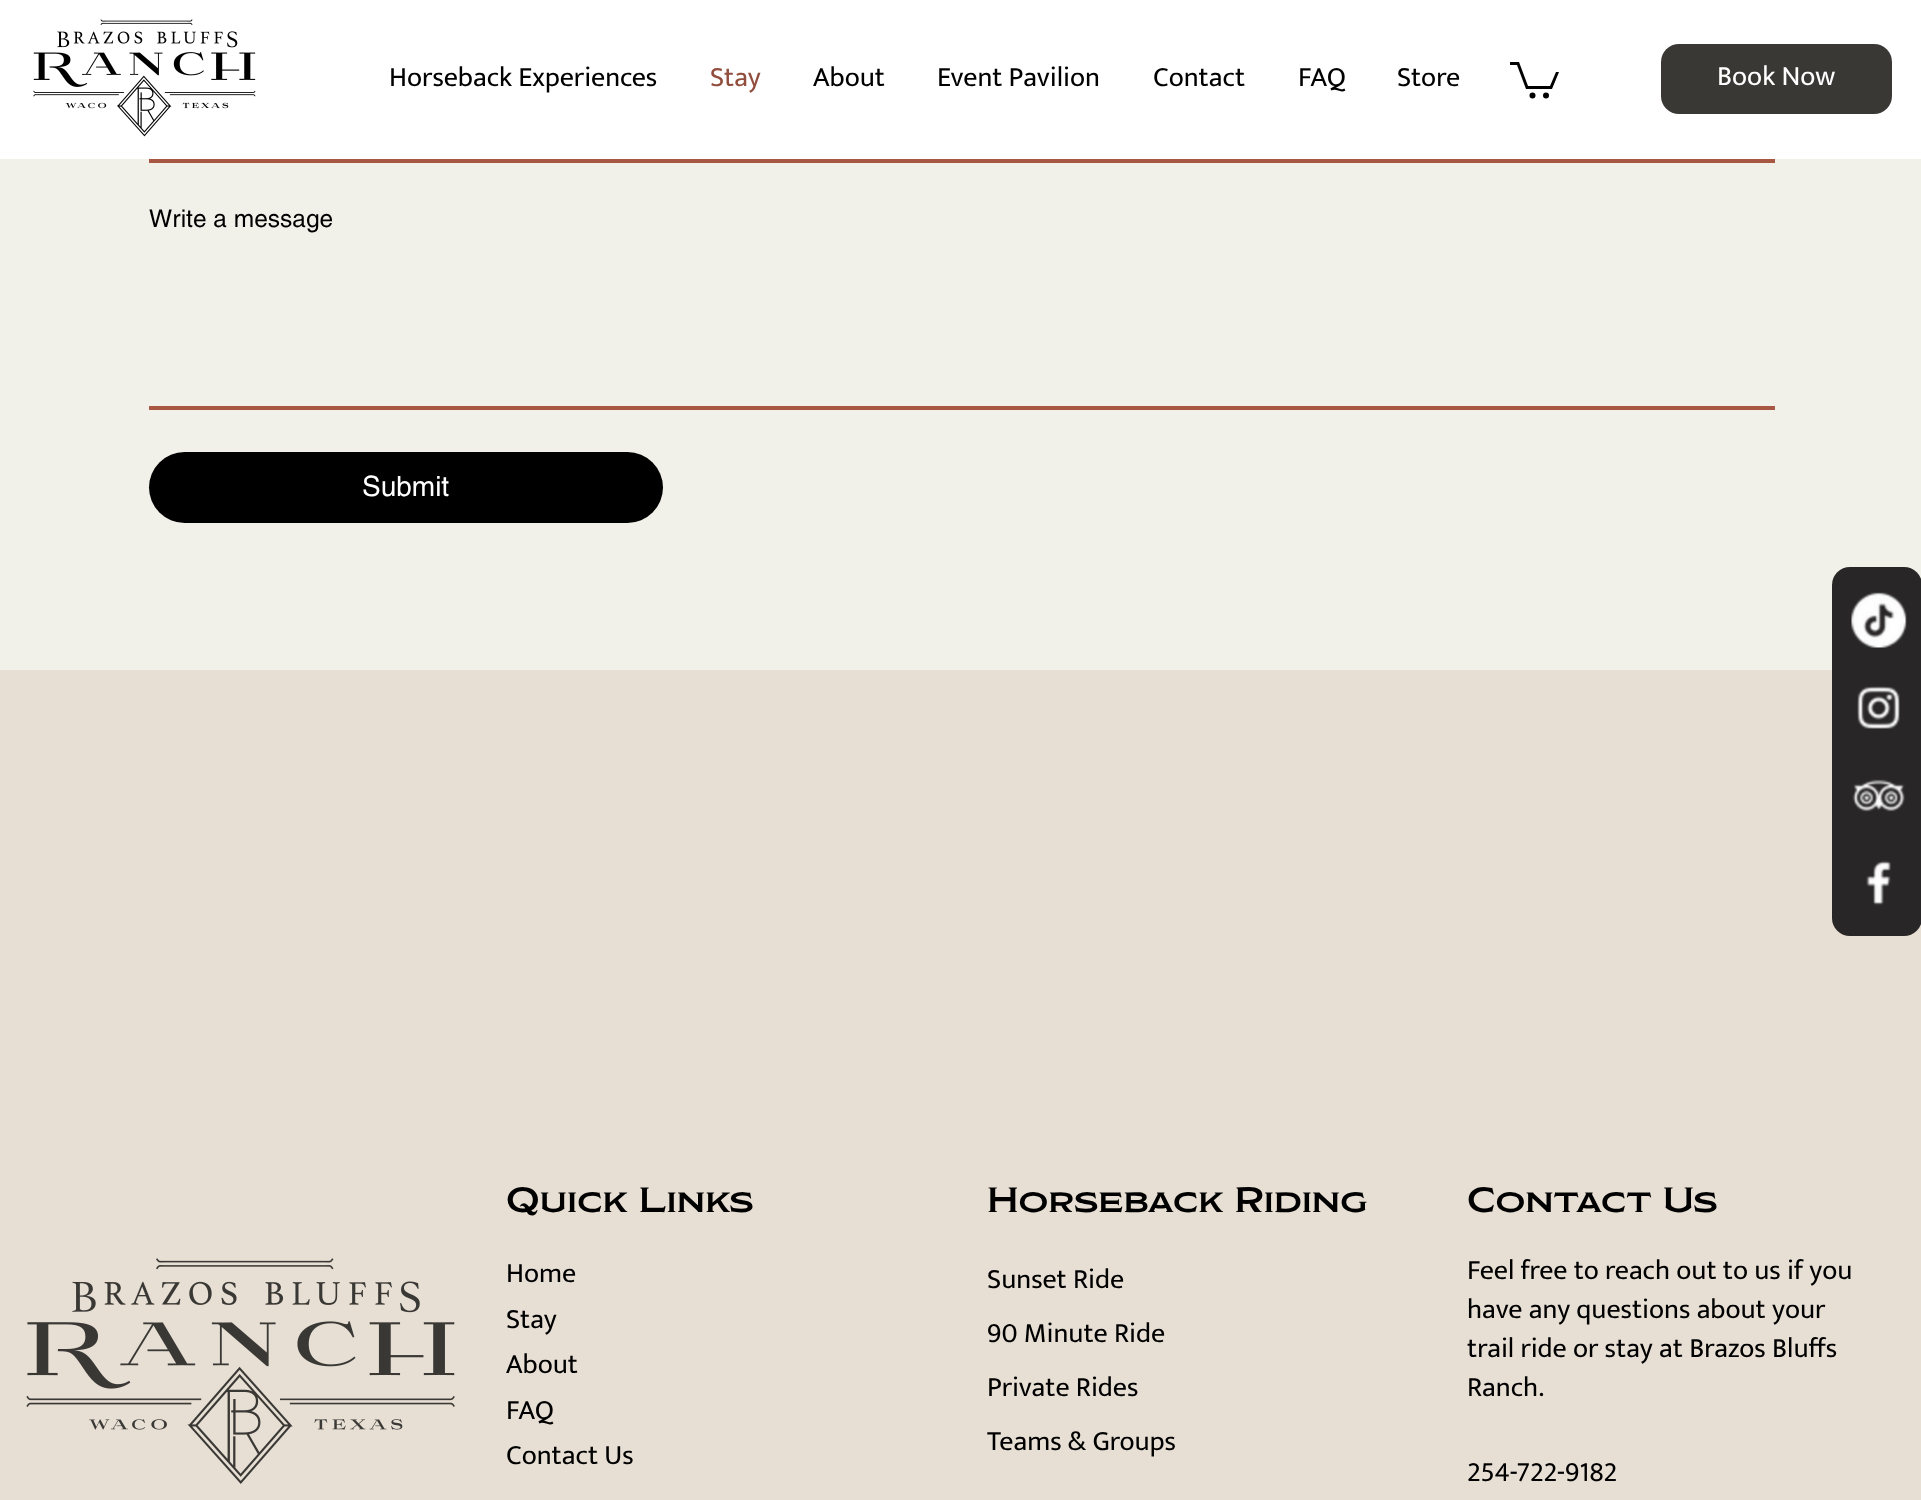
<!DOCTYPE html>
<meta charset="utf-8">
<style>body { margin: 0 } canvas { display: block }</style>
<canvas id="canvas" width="1921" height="1500"></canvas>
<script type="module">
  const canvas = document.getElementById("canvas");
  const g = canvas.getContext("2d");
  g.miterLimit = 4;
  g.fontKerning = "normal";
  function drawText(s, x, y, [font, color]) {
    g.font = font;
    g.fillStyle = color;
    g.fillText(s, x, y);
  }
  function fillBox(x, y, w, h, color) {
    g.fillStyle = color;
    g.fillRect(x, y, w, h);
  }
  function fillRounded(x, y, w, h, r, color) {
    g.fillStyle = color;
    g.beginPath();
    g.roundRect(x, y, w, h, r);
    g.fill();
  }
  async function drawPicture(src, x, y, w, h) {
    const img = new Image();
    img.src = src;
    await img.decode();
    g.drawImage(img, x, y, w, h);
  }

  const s1 = ["28px Mukta", "#000000"];
  const s2 = ["28px Mukta", "#914D3D"];
  const s3 = ["28px Mukta", "#FFFFFF"];
  const s4 = ["24.5px helvetica", "#000000"];
  const s5 = ["28px helvetica", "#FFFFFF"];
  const s6 = ["300 35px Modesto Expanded", "#000000"];

  fillBox(0, 0, 1921, 1500, "#F1F0E9");
  fillBox(0, 0, 1921, 159, "#FFFFFF");
  await drawPicture("pic1.png", 33, 19, 223, 118);
  drawText("Horseback Experiences", 389, 86, s1);
  drawText("Stay", 710, 86, s2);
  drawText("About", 813, 86, s1);
  drawText("Event Pavilion", 937, 86, s1);
  drawText("Contact", 1153, 86, s1);
  drawText("FAQ", 1298, 86, s1);
  drawText("Store", 1397, 86, s1);
  g.beginPath();
  g.moveTo(1559, 72);
  g.lineTo(1552, 89);
  g.lineTo(1526, 89);
  g.lineTo(1517, 65);
  g.lineTo(1510, 65);
  g.lineTo(1510, 62);
  g.lineTo(1519, 62);
  g.lineTo(1528, 86);
  g.lineTo(1550, 86);
  g.lineTo(1556, 72);
  g.fill();
  g.beginPath();
  g.arc(1546, 95.5, 3, 0, Math.PI * 2);
  g.fill();
  g.beginPath();
  g.arc(1532.5, 95.5, 3, 0, Math.PI * 2);
  g.fill();
  fillRounded(1661, 44, 231, 70, 18, "#3A3835");
  drawText("Book Now", 1717, 85, s3);
  fillBox(149, 159, 1626, 4, "#A75742");
  drawText("Write a message", 149, 227, s4);
  fillBox(149, 406, 1626, 4, "#A75742");
  fillRounded(149, 452, 514, 71, 35.5, "#000000");
  drawText("Submit", 362, 496, s5);
  fillBox(0, 670, 1921, 830, "#E7DFD4");
  fillRounded(1832, 567, 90, 369, 18, "#282626");
  await drawPicture("pic2.png", 1851, 592, 56, 56);
  await drawPicture("pic3.png", 1857, 686, 43, 43);
  await drawPicture("pic4.png", 1852, 779, 53, 33);
  await drawPicture("pic5.png", 1866, 860, 25, 46);
  await drawPicture("pic6.png", 26, 1258, 429, 226);
  drawText("Quick Links", 506, 1212, s6);
  drawText("Home", 506, 1282, s1);
  drawText("Stay", 506, 1328, s1);
  drawText("About", 506, 1373, s1);
  drawText("FAQ", 506, 1419, s1);
  drawText("Contact Us", 506, 1464, s1);
  drawText("Horseback Riding", 987, 1212, s6);
  drawText("Sunset Ride", 987, 1288, s1);
  drawText("90 Minute Ride", 987, 1342, s1);
  drawText("Private Rides", 987, 1396, s1);
  drawText("Teams & Groups", 987, 1450, s1);
  drawText("Contact Us", 1467, 1212, s6);
  drawText("Feel free to reach out to us if you", 1467, 1279, s1);
  drawText("have any questions about your", 1467, 1318, s1);
  drawText("trail ride or stay at Brazos Bluffs", 1467, 1357, s1);
  drawText("Ranch.", 1467, 1396, s1);
  drawText("254-722-9182", 1467, 1481, s1);
</script>
